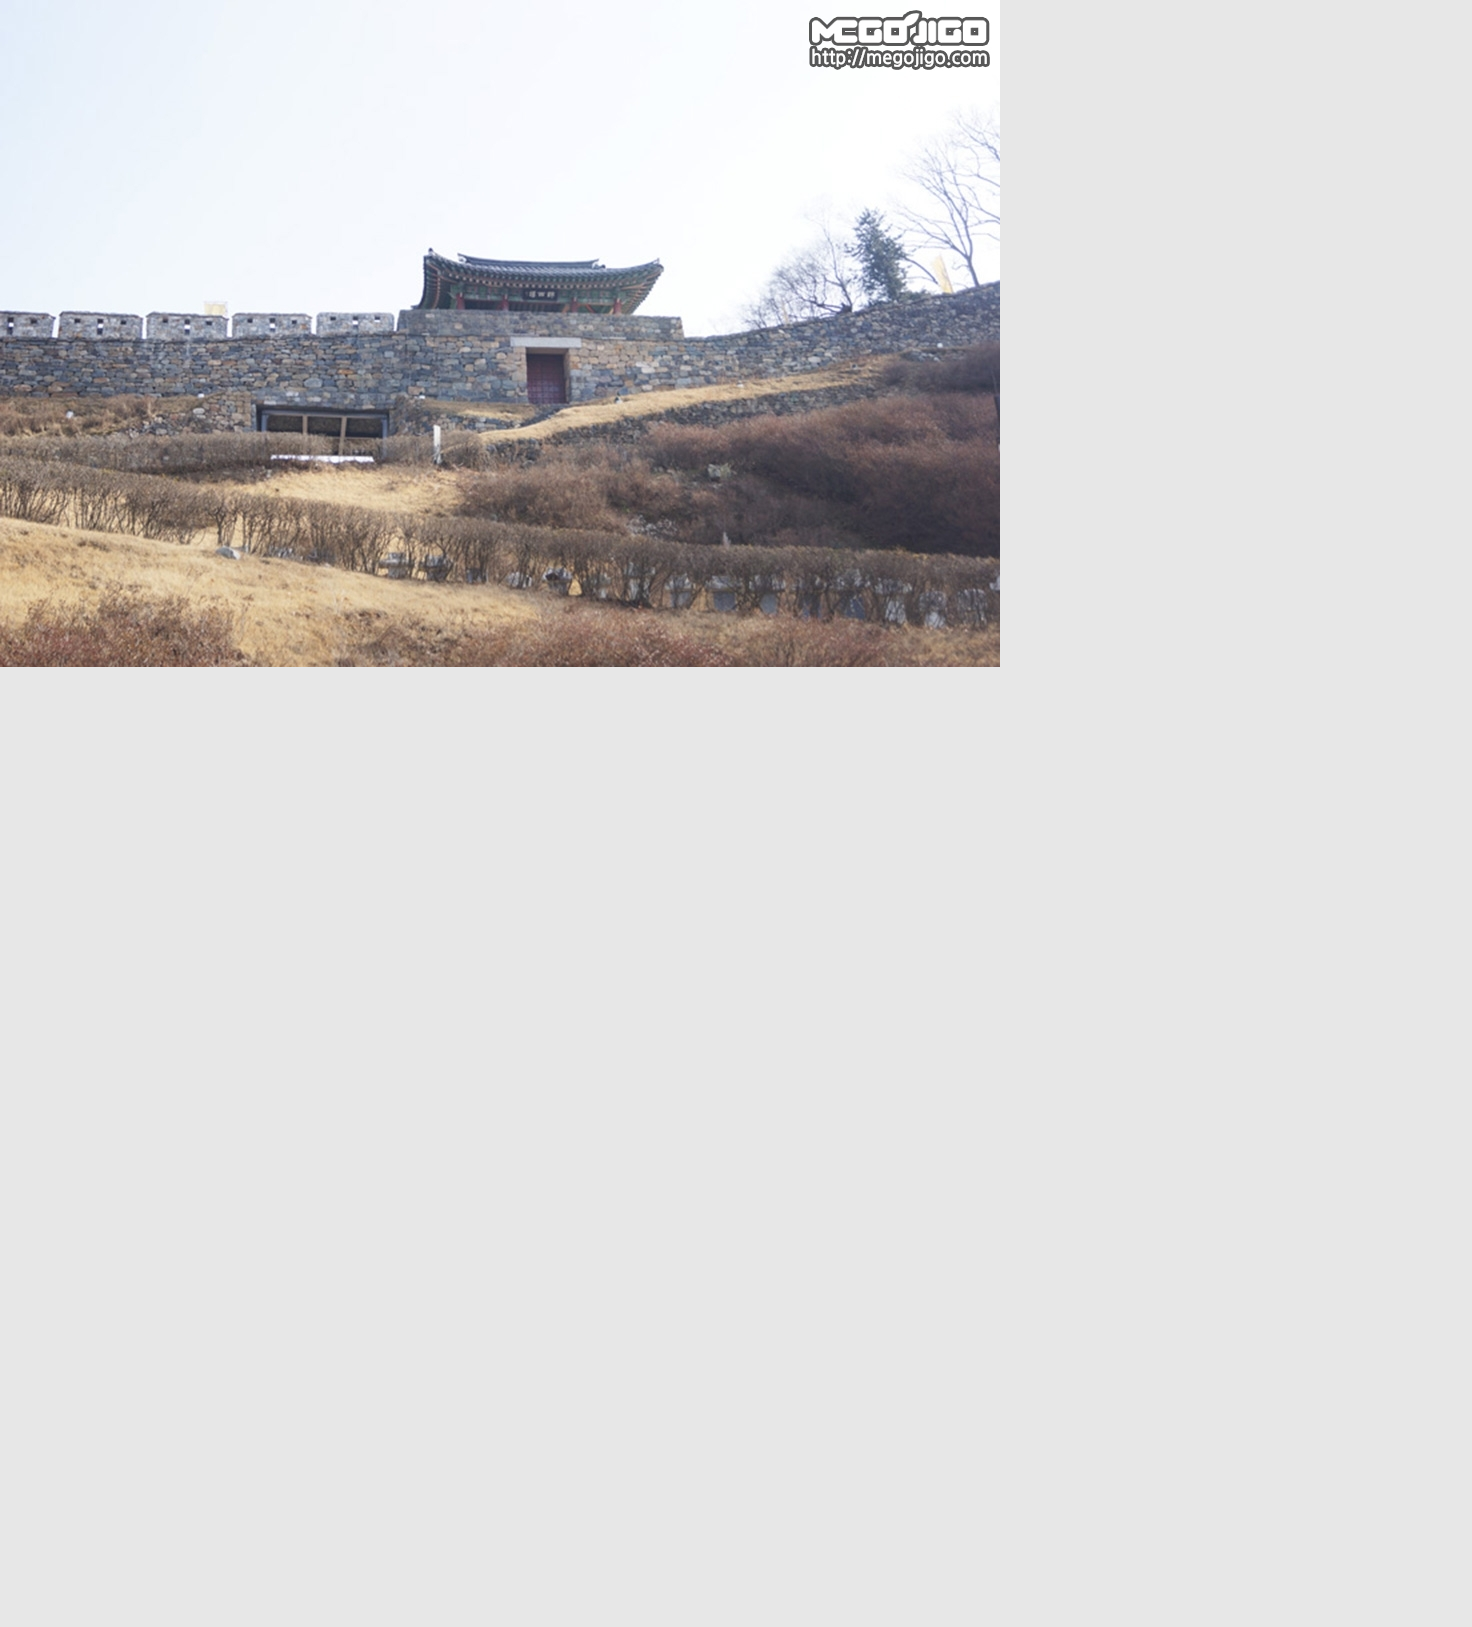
<!DOCTYPE html>
<meta charset="utf-8">
<style>body { margin: 0 } canvas { display: block }</style>
<canvas id="canvas" width="1472" height="1627"></canvas>
<script type="module">
  const canvas = document.getElementById("canvas");
  const g = canvas.getContext("2d");
  g.miterLimit = 4;
  g.fontKerning = "normal";
  function fillBox(x, y, w, h, color) {
    g.fillStyle = color;
    g.fillRect(x, y, w, h);
  }
  async function drawPicture(src, x, y, w, h) {
    const img = new Image();
    img.src = src;
    await img.decode();
    g.drawImage(img, x, y, w, h);
  }

  fillBox(0, 0, 1472, 1627, "#E7E7E7");
  await drawPicture("pic1.png", 0, 0, 1000, 667);
</script>
